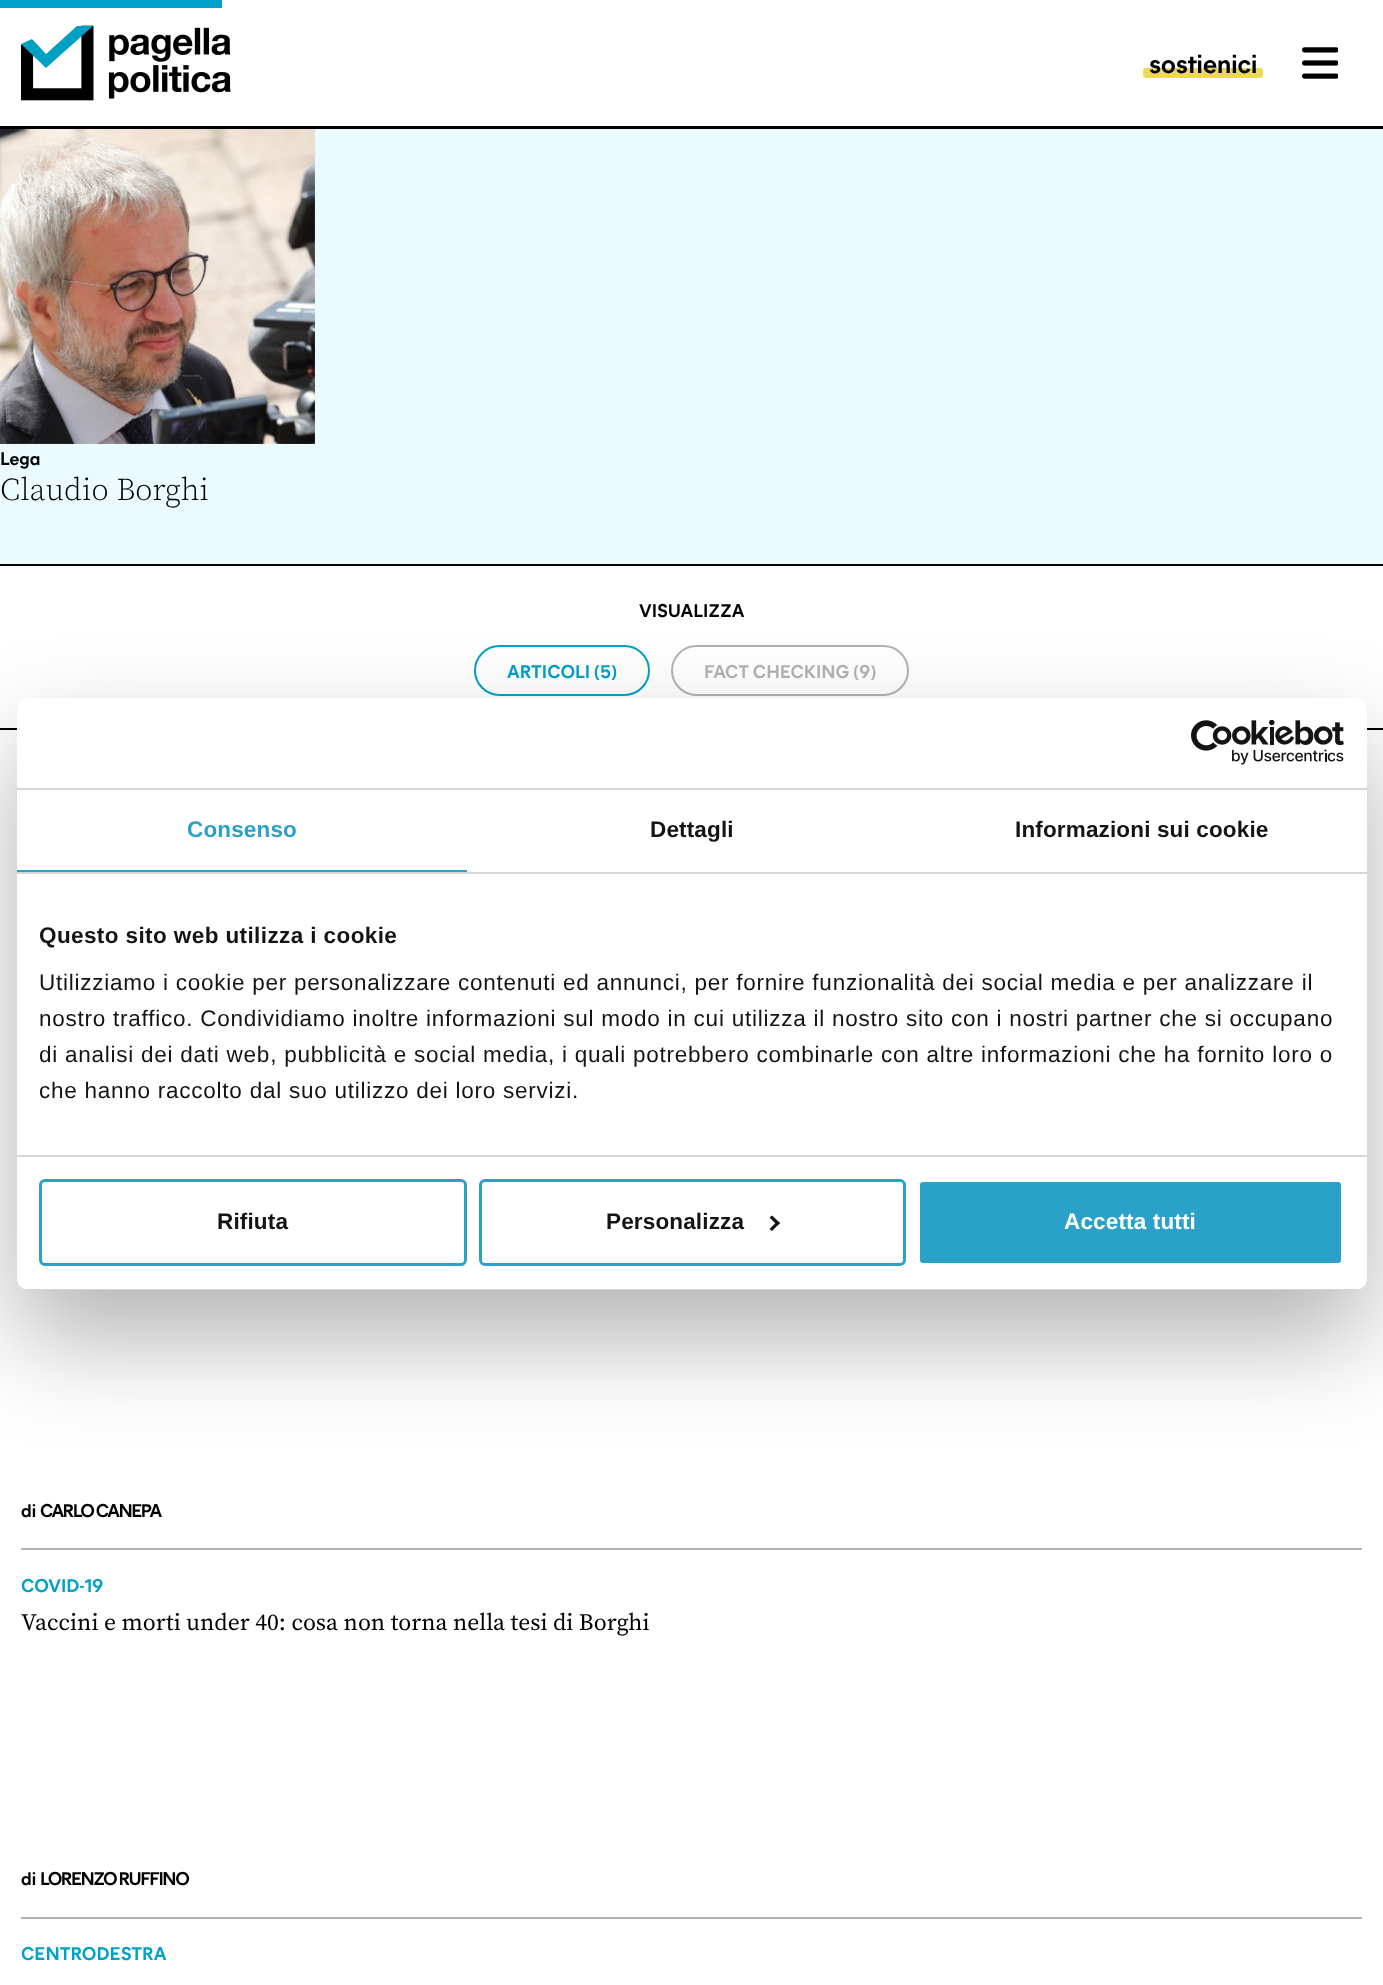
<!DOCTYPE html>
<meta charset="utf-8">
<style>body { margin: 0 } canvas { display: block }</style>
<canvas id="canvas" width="1383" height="1985"></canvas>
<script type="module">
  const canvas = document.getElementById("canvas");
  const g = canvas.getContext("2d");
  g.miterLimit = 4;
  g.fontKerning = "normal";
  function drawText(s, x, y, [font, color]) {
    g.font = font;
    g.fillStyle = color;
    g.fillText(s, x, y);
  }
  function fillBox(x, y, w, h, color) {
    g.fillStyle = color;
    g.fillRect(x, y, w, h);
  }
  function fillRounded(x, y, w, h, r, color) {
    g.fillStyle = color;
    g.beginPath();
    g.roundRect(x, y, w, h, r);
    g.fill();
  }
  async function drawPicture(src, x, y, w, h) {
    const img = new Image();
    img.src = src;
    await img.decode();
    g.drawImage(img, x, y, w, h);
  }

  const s1 = ["bold 26.25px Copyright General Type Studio", "#000000"];
  const s2 = ["bold 18.4px Copyright General Type Studio", "#000000"];
  const s3 = ["300 31.5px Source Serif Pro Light", "#000000"];
  const s4 = ["bold 18.4px Copyright General Type Studio", "#00A1C8"];
  const s5 = ["bold 18.4px Copyright General Type Studio", "#B3B3B3"];
  const s6 = ["23.6px Source Serif Pro", "#000000"];
  const s7 = ["bold 22.5px Liberation Sans", "#29A1C8"];
  const s8 = ["bold 22.5px Liberation Sans", "#141414"];
  const s9 = ["22.5px Liberation Sans", "#141414"];
  const s10 = ["bold 22.5px Liberation Sans", "#FFFFFF"];

  fillBox(0, 0, 1383, 1985, "#FFFFFF");
  fillBox(0, 0, 222, 8, "#00A1C8");
  fillBox(0, 126, 1383, 3, "#000000");
  await drawPicture("pic1.png", 21, 25, 210, 76);
  g.fillStyle = "#009FC4";
  g.beginPath();
  g.moveTo(93, 26);
  g.lineTo(46, 68);
  g.lineTo(21, 44);
  g.lineTo(32, 39);
  g.lineTo(46, 54);
  g.lineTo(77, 26);
  g.closePath();
  g.fill("evenodd");
  fillRounded(1143, 68, 120, 10, 3, "#EED954");
  drawText("sostienici", 1149, 73, s1);
  await drawPicture("pic2.png", 1302, 47, 36, 32);
  fillBox(0, 129, 1383, 435, "#EAFBFF");
  await drawPicture("pic3.png", 0, 129, 315, 315);
  drawText("Lega", 0, 465, s2);
  drawText("Claudio Borghi", 0, 500, s3);
  fillBox(0, 564, 1383, 2, "#000000");
  fillBox(0, 728, 1383, 2, "#000000");
  drawText("VISUALIZZA", 639, 617, s2);
  g.beginPath();
  g.roundRect(475, 646, 174, 49, 24.5);
  g.strokeStyle = "#00A1C8";
  g.lineWidth = 2;
  g.stroke();
  drawText("ARTICOLI (5)", 507, 678, s4);
  g.beginPath();
  g.roundRect(672, 646, 236, 49, 24.5);
  g.strokeStyle = "#B3B3B3";
  g.stroke();
  drawText("FACT CHECKING (9)", 704, 678, s5);
  drawText("di", 21, 1517, s2);
  g.letterSpacing = "-1.5px";
  drawText("CARLO CANEPA", 40, 1517, s2);
  fillBox(21, 1548, 1341, 2, "#B3B3B3");
  g.letterSpacing = "0px";
  drawText("COVID-19", 21, 1592, s4);
  drawText("Vaccini e morti under 40: cosa non torna nella tesi di Borghi", 21, 1630, s6);
  drawText("di", 21, 1885, s2);
  g.letterSpacing = "-1.5px";
  drawText("LORENZO RUFFINO", 40, 1885, s2);
  fillBox(21, 1917, 1341, 2, "#B3B3B3");
  g.letterSpacing = "0px";
  drawText("CENTRODESTRA", 21, 1960, s4);
  g.fillStyle = "rgba(0, 0, 0, 0.3)";
  g.filter = "blur(51px)";
  g.beginPath();
  g.roundRect(17, 746, 1350, 592, 12);
  g.fill();
  g.filter = "none";
  fillRounded(17, 698, 1350, 592, 12, "#FFFFFF");
  fillBox(17, 788, 1350, 2, "#D6D6D6");
  await drawPicture("pic4.png", 1191, 720, 153, 45);
  fillBox(17, 872, 1350, 2, "#D6D6D6");
  fillBox(17, 870, 450, 2, "#29A1C8");
  g.letterSpacing = "0.15px";
  drawText("Consenso", 187, 837, s7);
  drawText("Dettagli", 650, 837, s8);
  drawText("Informazioni sui cookie", 1015, 837, s8);
  fillBox(17, 1155, 1350, 2, "#D6D6D6");
  g.letterSpacing = "0.4px";
  drawText("Questo sito web utilizza i cookie", 39, 943, s8);
  g.letterSpacing = "0.75px";
  drawText("Utilizziamo i cookie per personalizzare contenuti ed annunci, per fornire funzionalità dei social media e per analizzare il", 39, 990, s9);
  drawText("nostro traffico. Condividiamo inoltre informazioni sul modo in cui utilizza il nostro sito con i nostri partner che si occupano", 39, 1026, s9);
  drawText("di analisi dei dati web, pubblicità e social media, i quali potrebbero combinarle con altre informazioni che ha fornito loro o", 39, 1062, s9);
  drawText("che hanno raccolto dal suo utilizzo dei loro servizi.", 39, 1098, s9);
  g.save();
  g.beginPath();
  g.roundRect(17, 698, 1350, 592, 12);
  g.clip();
  fillBox(17, 1289, 1350, 1, "#D6D6D6");
  g.restore();
  g.beginPath();
  g.roundRect(40.5, 1180.5, 425, 84, 4.5);
  g.strokeStyle = "#29A1C8";
  g.lineWidth = 3;
  g.stroke();
  g.letterSpacing = "0.15px";
  drawText("Rifiuta", 217, 1229, s8);
  g.beginPath();
  g.roundRect(480.5, 1180.5, 424, 84, 4.5);
  g.stroke();
  drawText("Personalizza", 606, 1229, s8);
  g.beginPath();
  g.moveTo(772, 1215.5);
  g.lineTo(780, 1223);
  g.lineTo(777.5, 1225.5);
  g.lineTo(769.5, 1217.5);
  g.closePath();
  g.fill();
  g.beginPath();
  g.moveTo(777.5, 1221);
  g.lineTo(780, 1223);
  g.lineTo(772, 1231);
  g.lineTo(769.5, 1229);
  g.closePath();
  g.fill();
  g.fillStyle = "#29A1C8";
  g.beginPath();
  g.roundRect(918.5, 1180.5, 424, 84, 4.5);
  g.fill();
  g.strokeStyle = "#FFFFFF";
  g.stroke();
  drawText("Accetta tutti", 1064, 1229, s10);
</script>
